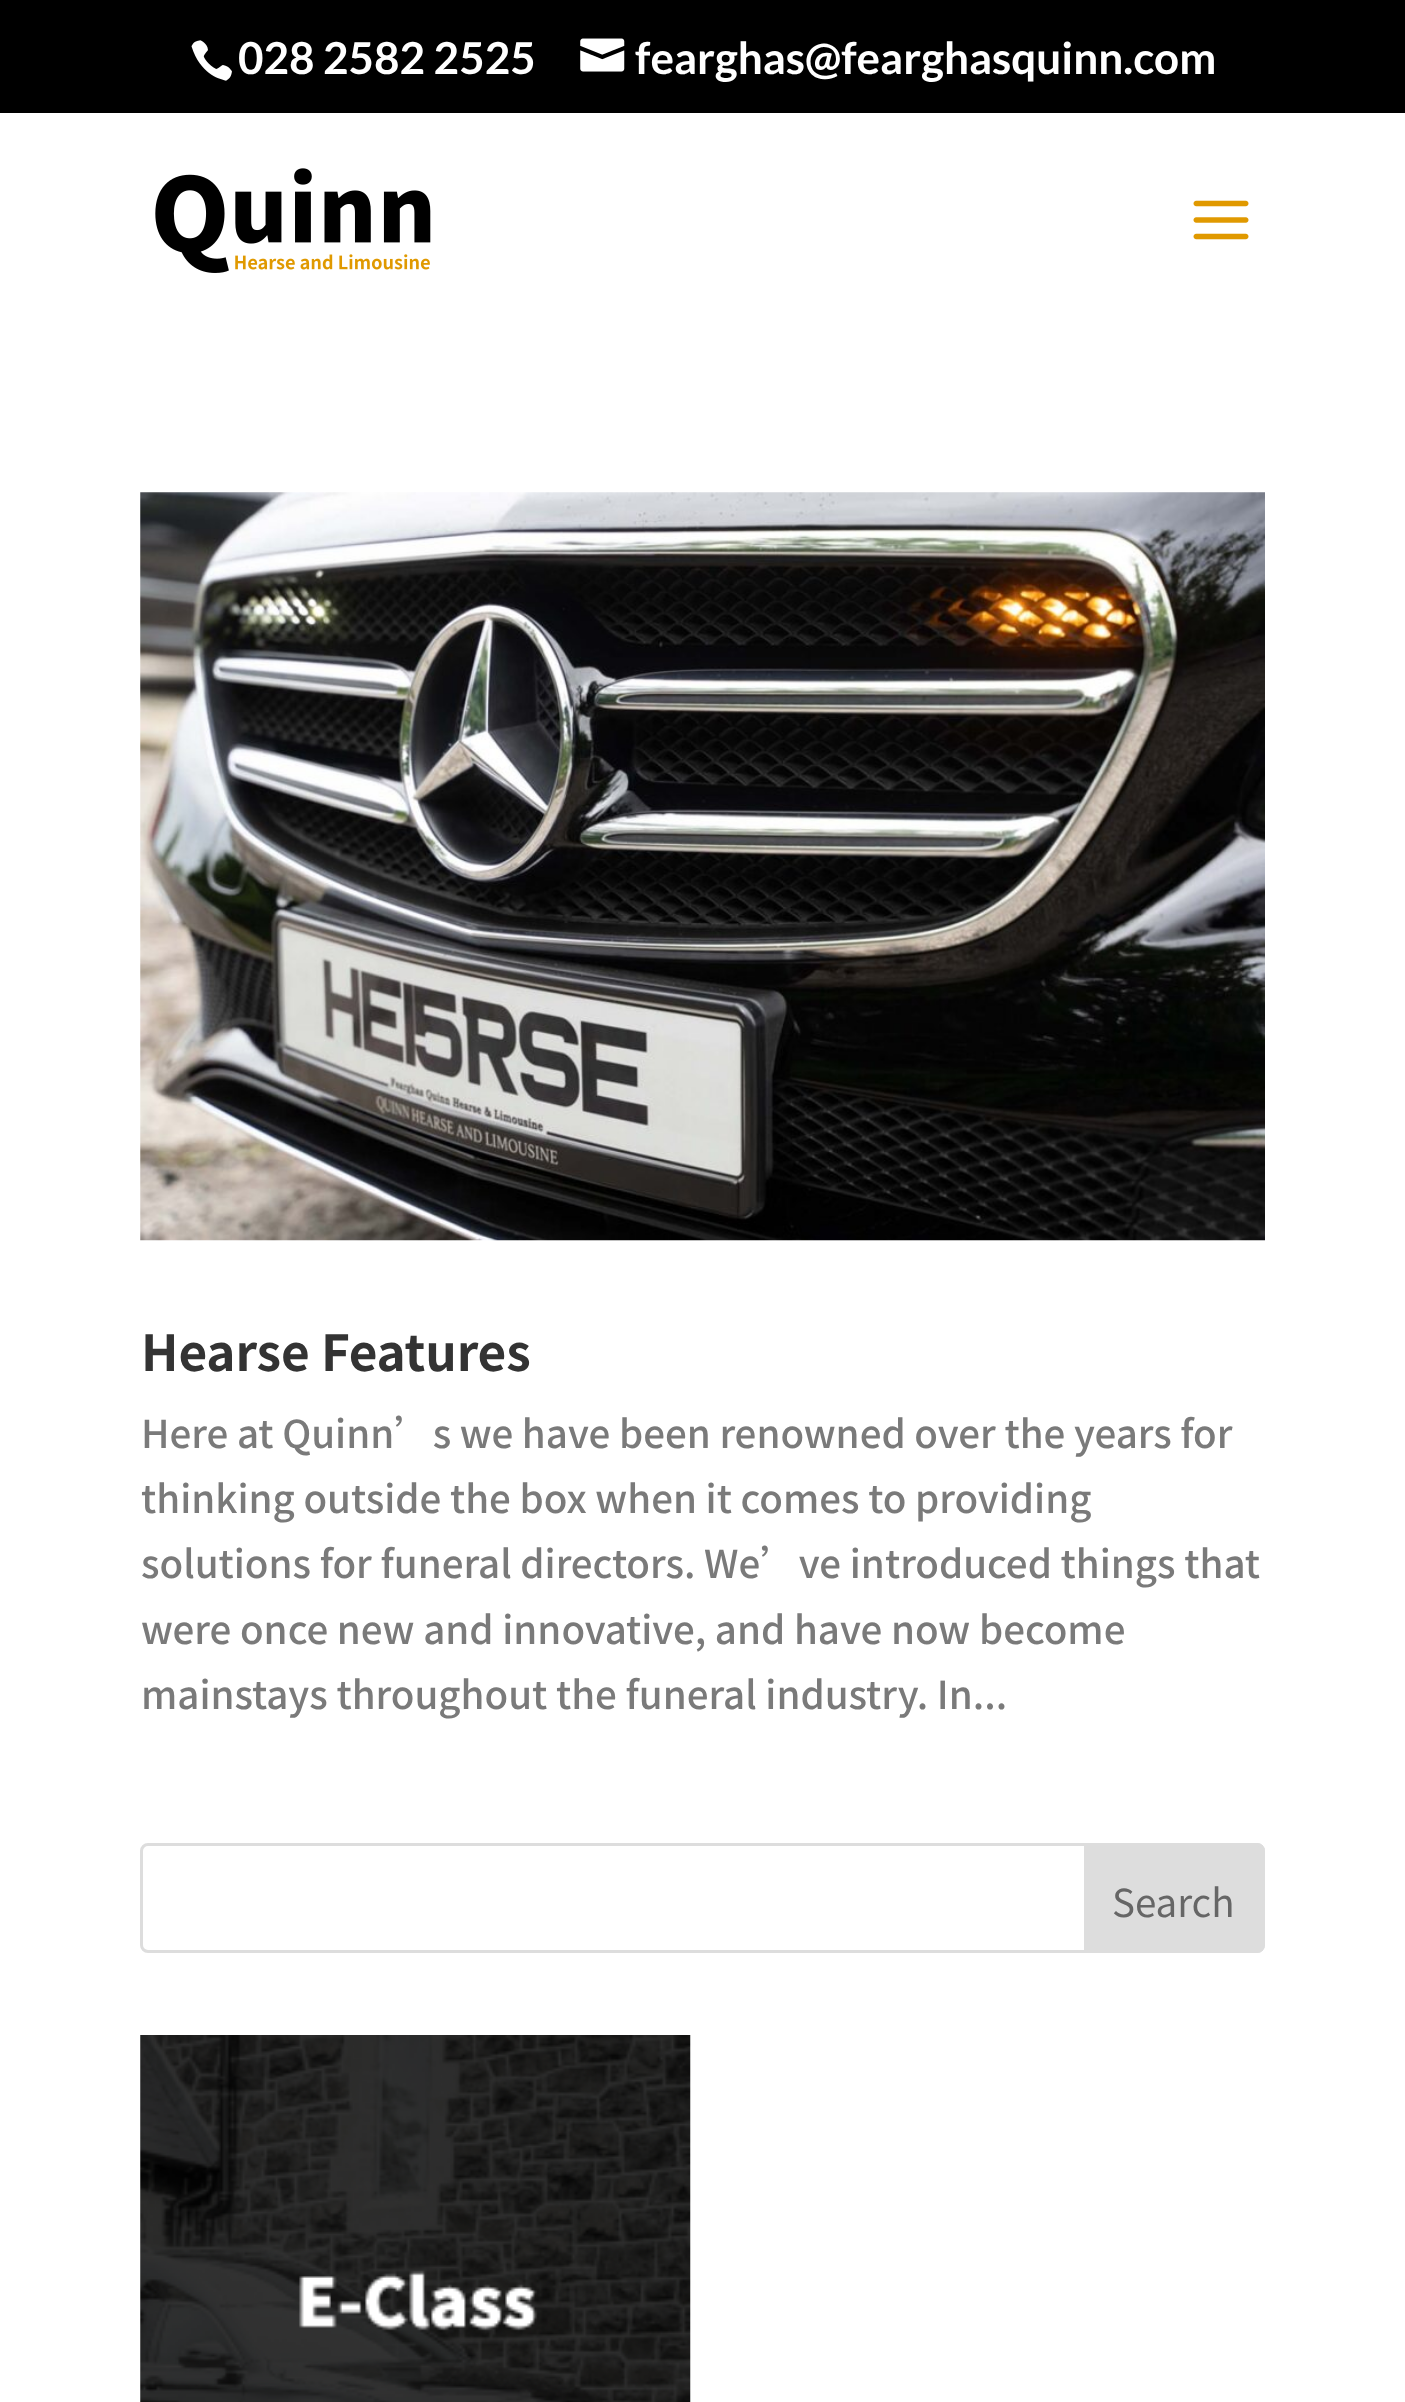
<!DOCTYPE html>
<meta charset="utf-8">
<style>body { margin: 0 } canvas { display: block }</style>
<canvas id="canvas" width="1405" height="2402"></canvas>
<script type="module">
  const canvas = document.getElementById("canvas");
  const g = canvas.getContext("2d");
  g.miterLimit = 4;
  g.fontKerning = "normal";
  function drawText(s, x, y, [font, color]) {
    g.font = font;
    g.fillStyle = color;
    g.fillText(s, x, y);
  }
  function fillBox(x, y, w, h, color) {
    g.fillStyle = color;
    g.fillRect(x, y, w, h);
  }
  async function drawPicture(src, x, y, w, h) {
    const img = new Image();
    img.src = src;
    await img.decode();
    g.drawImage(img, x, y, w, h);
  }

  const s1 = ["bold 44px Lato", "#FFFFFF"];
  const s2 = ["bold 49.5px Noto Sans HK", "#333333"];
  const s3 = ["500 38.5px Noto Sans HK", "#7A7A7A"];
  const s4 = ["38.5px Noto Sans HK", "#666666"];

  fillBox(0, 0, 1405, 2402, "#FFFFFF");
  fillBox(0, 0, 1405, 113, "#000000");
  await drawPicture("pic1.png", 191, 40, 41, 41);
  drawText("028 2582 2525", 238, 74, s1);
  await drawPicture("pic2.png", 580, 38, 45, 34);
  drawText("fearghas@fearghasquinn.com", 635, 74, s1);
  await drawPicture("pic3.png", 155, 168, 276, 105);
  await drawPicture("pic4.png", 1193, 200, 56, 40);
  await drawPicture("pic5.png", 140, 492, 1125, 749);
  drawText("Hearse Features", 141, 1371, s2);
  drawText("Here at Quinn’s we have been renowned over the years for", 141, 1448, s3);
  drawText("thinking outside the box when it comes to providing", 141, 1513, s3);
  drawText("solutions for funeral directors. We’ve introduced things that", 141, 1578, s3);
  drawText("were once new and innovative, and have now become", 141, 1644, s3);
  drawText("mainstays throughout the funeral industry. In...", 141, 1709, s3);
  g.beginPath();
  g.roundRect(141.5, 1844.5, 1122, 107, 6.5);
  g.strokeStyle = "#DDDDDD";
  g.lineWidth = 3;
  g.stroke();
  g.fillStyle = "#DDDDDD";
  g.beginPath();
  g.roundRect(1085.5, 1844.5, 178, 107, [0, 6.5, 6.5, 0]);
  g.fill();
  g.stroke();
  drawText("Search", 1112, 1917, s4);
  await drawPicture("pic6.png", 140, 2035, 551, 367);
</script>
